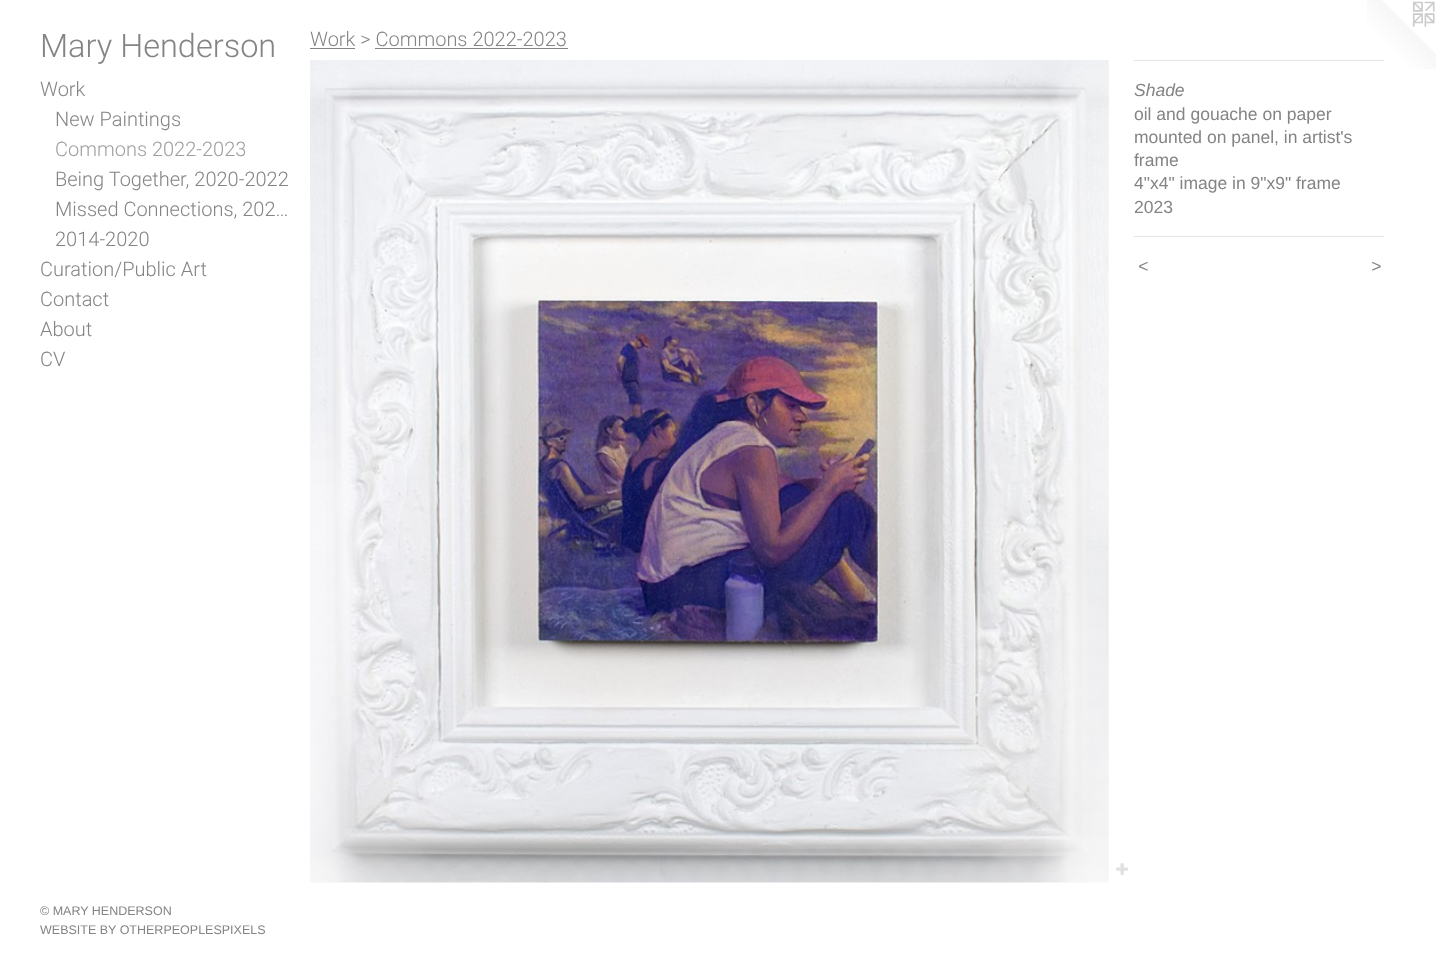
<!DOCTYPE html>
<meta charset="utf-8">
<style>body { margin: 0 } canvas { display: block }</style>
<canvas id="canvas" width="1436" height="967"></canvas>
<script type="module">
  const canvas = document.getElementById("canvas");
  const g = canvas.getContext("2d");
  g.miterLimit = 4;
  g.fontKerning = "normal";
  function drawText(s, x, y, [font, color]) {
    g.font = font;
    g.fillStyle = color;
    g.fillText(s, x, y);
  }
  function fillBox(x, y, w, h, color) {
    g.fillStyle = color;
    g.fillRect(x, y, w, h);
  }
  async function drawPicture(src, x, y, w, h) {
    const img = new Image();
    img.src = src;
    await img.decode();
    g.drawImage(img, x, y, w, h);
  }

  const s1 = ["300 32.5px Roboto", "#848484"];
  const s2 = ["300 20px Roboto", "#848484"];
  const s3 = ["300 20px Roboto", "#9E9E9E"];
  const s4 = ["12.5px Liberation Sans", "#848484"];
  const s5 = ["italic 17.5px Liberation Sans", "#848484"];
  const s6 = ["17.5px Liberation Sans", "#848484"];

  fillBox(0, 0, 1436, 967, "#FFFFFF");
  drawText("Mary Henderson", 40, 57, s1);
  drawText("Work", 40, 96, s2);
  drawText("New Paintings", 55, 126, s2);
  drawText("Commons 2022-2023", 55, 156, s3);
  drawText("Being Together, 2020-2022", 55, 186, s2);
  drawText("Missed Connections, 202…", 55, 216, s2);
  drawText("2014-2020", 55, 246, s2);
  drawText("Curation/Public Art", 40, 276, s2);
  drawText("Contact", 40, 306, s2);
  drawText("About", 40, 336, s2);
  drawText("CV", 40, 366, s2);
  drawText("© MARY HENDERSON", 40, 915, s4);
  drawText("WEBSITE BY OTHERPEOPLESPIXELS", 40, 934, s4);
  drawText("Work > Commons 2022-2023", 310, 46, s2);
  fillBox(310, 48, 45, 1, "#848484");
  fillBox(375, 48, 193, 1, "#848484");
  await drawPicture("pic1.png", 310, 60, 799, 823);
  await drawPicture("pic2.png", 1116, 863, 12, 12);
  await drawPicture("pic3.png", 1367, 0, 69, 69);
  fillBox(1134, 60, 250, 1, "#E6E6E6");
  drawText("Shade", 1134, 96, s5);
  drawText("oil and gouache on paper", 1134, 120, s6);
  drawText("mounted on panel, in artist's", 1134, 143, s6);
  drawText("frame", 1134, 166, s6);
  drawText("4\"x4\" image in 9\"x9\" frame", 1134, 189, s6);
  drawText("2023", 1134, 213, s6);
  fillBox(1134, 236, 250, 1, "#E6E6E6");
  g.letterSpacing = "1px";
  drawText("<", 1138, 272, s5);
  drawText(">", 1371, 272, s5);
</script>
